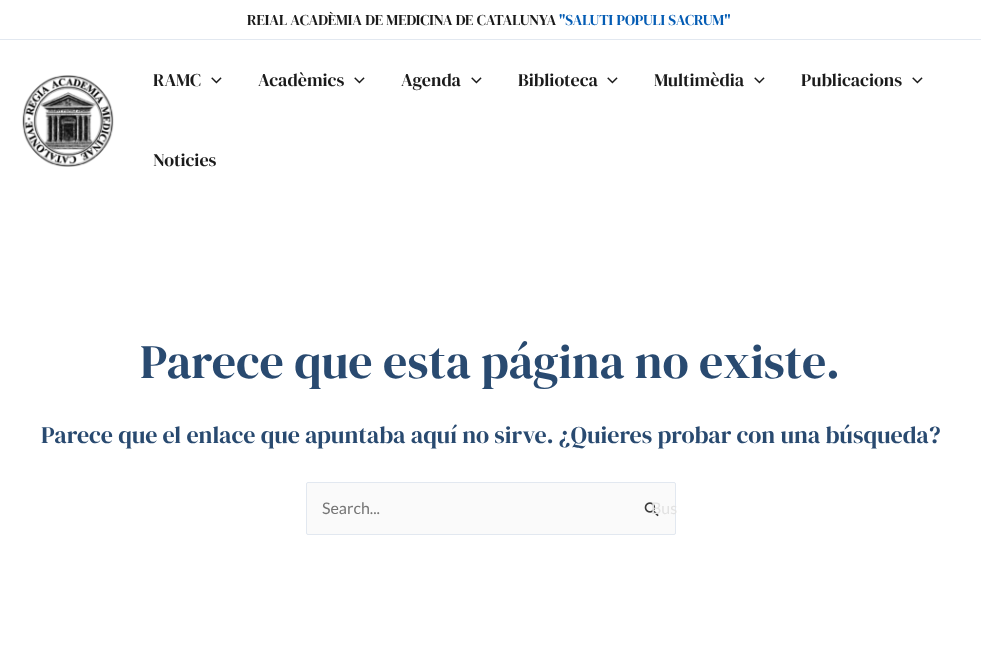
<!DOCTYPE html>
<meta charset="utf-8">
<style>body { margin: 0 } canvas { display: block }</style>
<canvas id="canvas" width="981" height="653"></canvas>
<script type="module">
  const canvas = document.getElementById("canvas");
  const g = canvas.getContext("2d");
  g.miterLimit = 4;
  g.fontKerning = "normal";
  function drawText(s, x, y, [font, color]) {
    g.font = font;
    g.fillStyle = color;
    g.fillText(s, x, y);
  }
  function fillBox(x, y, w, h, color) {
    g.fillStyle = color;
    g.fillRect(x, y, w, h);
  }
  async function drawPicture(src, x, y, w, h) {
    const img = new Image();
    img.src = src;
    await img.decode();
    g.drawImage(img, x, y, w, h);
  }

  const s1 = ["15px DM Serif Display", "#1B1B1B"];
  const s2 = ["15px DM Serif Display", "#045CB4"];
  const s3 = ["18px DM Serif Display", "#1B1B1B"];
  const s4 = ["48px DM Serif Display", "#294A70"];
  const s5 = ["24px DM Serif Display", "#294A70"];
  const s6 = ["16px Lato", "#757575"];
  const s7 = ["16px Lato", "#E2E2E2"];

  fillBox(0, 0, 981, 653, "#FFFFFF");
  fillBox(0, 39, 981, 1, "#E2E8F0");
  drawText("REIAL ACADÈMIA DE MEDICINA DE CATALUNYA", 247, 25, s1);
  drawText("\"SALUTI POPULI SACRUM\"", 559, 25, s2);
  await drawPicture("pic1.png", 22, 75, 92, 92);
  drawText("RAMC", 153, 86, s3);
  await drawPicture("pic2.png", 211, 77, 11, 7);
  drawText("Acadèmics", 258, 86, s3);
  await drawPicture("pic2.png", 354, 77, 11, 7);
  drawText("Agenda", 401, 86, s3);
  await drawPicture("pic2.png", 471, 77, 11, 7);
  drawText("Biblioteca", 518, 86, s3);
  await drawPicture("pic2.png", 607, 77, 11, 7);
  drawText("Multimèdia", 654, 86, s3);
  await drawPicture("pic2.png", 754, 77, 11, 7);
  drawText("Publicacions", 801, 86, s3);
  await drawPicture("pic2.png", 912, 77, 11, 7);
  drawText("Noticies", 153, 166, s3);
  drawText("Parece que esta página no existe.", 140, 378, s4);
  drawText("Parece que el enlace que apuntaba aquí no sirve. ¿Quieres probar con una búsqueda?", 41, 443, s5);
  g.fillStyle = "#FAFAFA";
  g.beginPath();
  g.roundRect(306.5, 482.5, 369, 52, 1.5);
  g.fill();
  g.strokeStyle = "#E2E8F0";
  g.stroke();
  drawText("Search...", 322, 514, s6);
  await drawPicture("pic3.png", 644, 502, 15, 15);
  drawText("Bus", 651, 514, s7);
</script>
